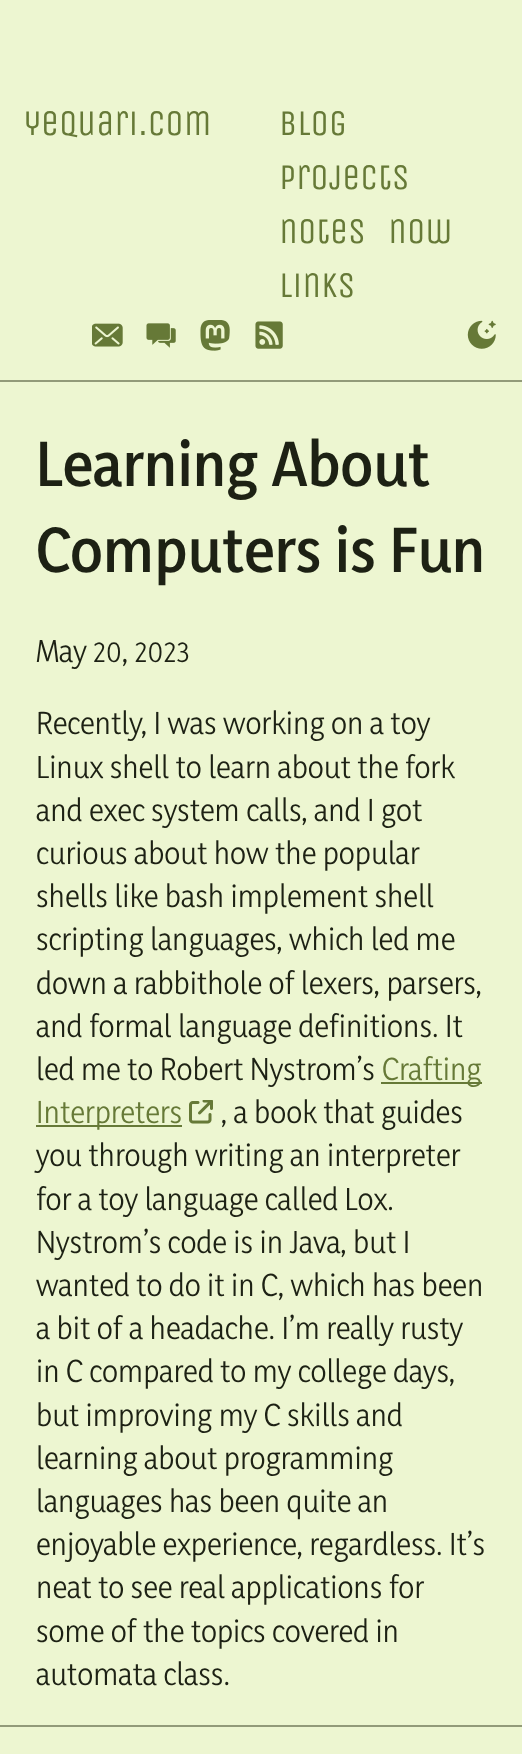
<!DOCTYPE html>
<meta charset="utf-8">
<style>body { margin: 0 } canvas { display: block }</style>
<canvas id="canvas" width="522" height="1754"></canvas>
<script type="module">
  const canvas = document.getElementById("canvas");
  const g = canvas.getContext("2d");
  g.miterLimit = 4;
  g.fontKerning = "normal";
  function drawText(s, x, y, [font, color]) {
    g.font = font;
    g.fillStyle = color;
    g.fillText(s, x, y);
  }
  function fillBox(x, y, w, h, color) {
    g.fillStyle = color;
    g.fillRect(x, y, w, h);
  }
  async function drawPicture(src, x, y, w, h) {
    const img = new Image();
    img.src = src;
    await img.decode();
    g.drawImage(img, x, y, w, h);
  }

  const s1 = ["36px Unica One", "#667937"];
  const s2 = ["200 57.5px Yaldevi", "#1D2114"];
  const s3 = ["200 28.75px 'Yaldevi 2'", "#1D2114"];
  const s4 = ["200 28.75px 'Yaldevi 2'", "#667937"];

  fillBox(0, 0, 522, 1754, "#EDF6D1");
  fillBox(0, 380, 522, 2, "#929A79");
  drawText("yequari.com", 24, 135, s1);
  drawText("blog", 279, 135, s1);
  drawText("projects", 279, 189, s1);
  drawText("notes", 279, 243, s1);
  drawText("now", 388, 243, s1);
  drawText("links", 279, 297, s1);
  await drawPicture("pic1.png", 92, 323, 31, 24);
  await drawPicture("pic2.png", 146, 323, 30, 25);
  await drawPicture("pic3.png", 200, 320, 30, 31);
  await drawPicture("pic4.png", 255, 321, 28, 28);
  await drawPicture("pic5.png", 467, 320, 29, 29);
  drawText("Learning About", 36, 486, s2);
  drawText("Computers is Fun", 36, 572, s2);
  drawText("May 20, 2023", 36, 662, s3);
  drawText("Recently, I was working on a toy", 36, 734, s3);
  drawText("Linux shell to learn about the fork", 36, 778, s3);
  drawText("and exec system calls, and I got", 36, 821, s3);
  drawText("curious about how the popular", 36, 864, s3);
  drawText("shells like bash implement shell", 36, 907, s3);
  drawText("scripting languages, which led me", 36, 950, s3);
  drawText("down a rabbithole of lexers, parsers,", 36, 994, s3);
  drawText("and formal language definitions. It", 36, 1037, s3);
  drawText("led me to Robert Nystrom’s", 36, 1080, s3);
  fillBox(381, 1082, 101, 2, "#667937");
  drawText("Crafting", 382, 1080, s4);
  fillBox(36, 1125, 146, 2, "#667937");
  drawText("Interpreters", 36, 1123, s4);
  await drawPicture("pic6.png", 189, 1100, 24, 24);
  drawText(", a book that guides", 221, 1123, s3);
  drawText("you through writing an interpreter", 36, 1166, s3);
  drawText("for a toy language called Lox.", 36, 1210, s3);
  drawText("Nystrom’s code is in Java, but I", 36, 1253, s3);
  drawText("wanted to do it in C, which has been", 36, 1296, s3);
  drawText("a bit of a headache. I’m really rusty", 36, 1339, s3);
  drawText("in C compared to my college days,", 36, 1382, s3);
  drawText("but improving my C skills and", 36, 1426, s3);
  drawText("learning about programming", 36, 1469, s3);
  drawText("languages has been quite an", 36, 1512, s3);
  drawText("enjoyable experience, regardless. It’s", 36, 1555, s3);
  drawText("neat to see real applications for", 36, 1598, s3);
  drawText("some of the topics covered in", 36, 1642, s3);
  drawText("automata class.", 36, 1685, s3);
  fillBox(0, 1725, 522, 2, "#929A79");
</script>
